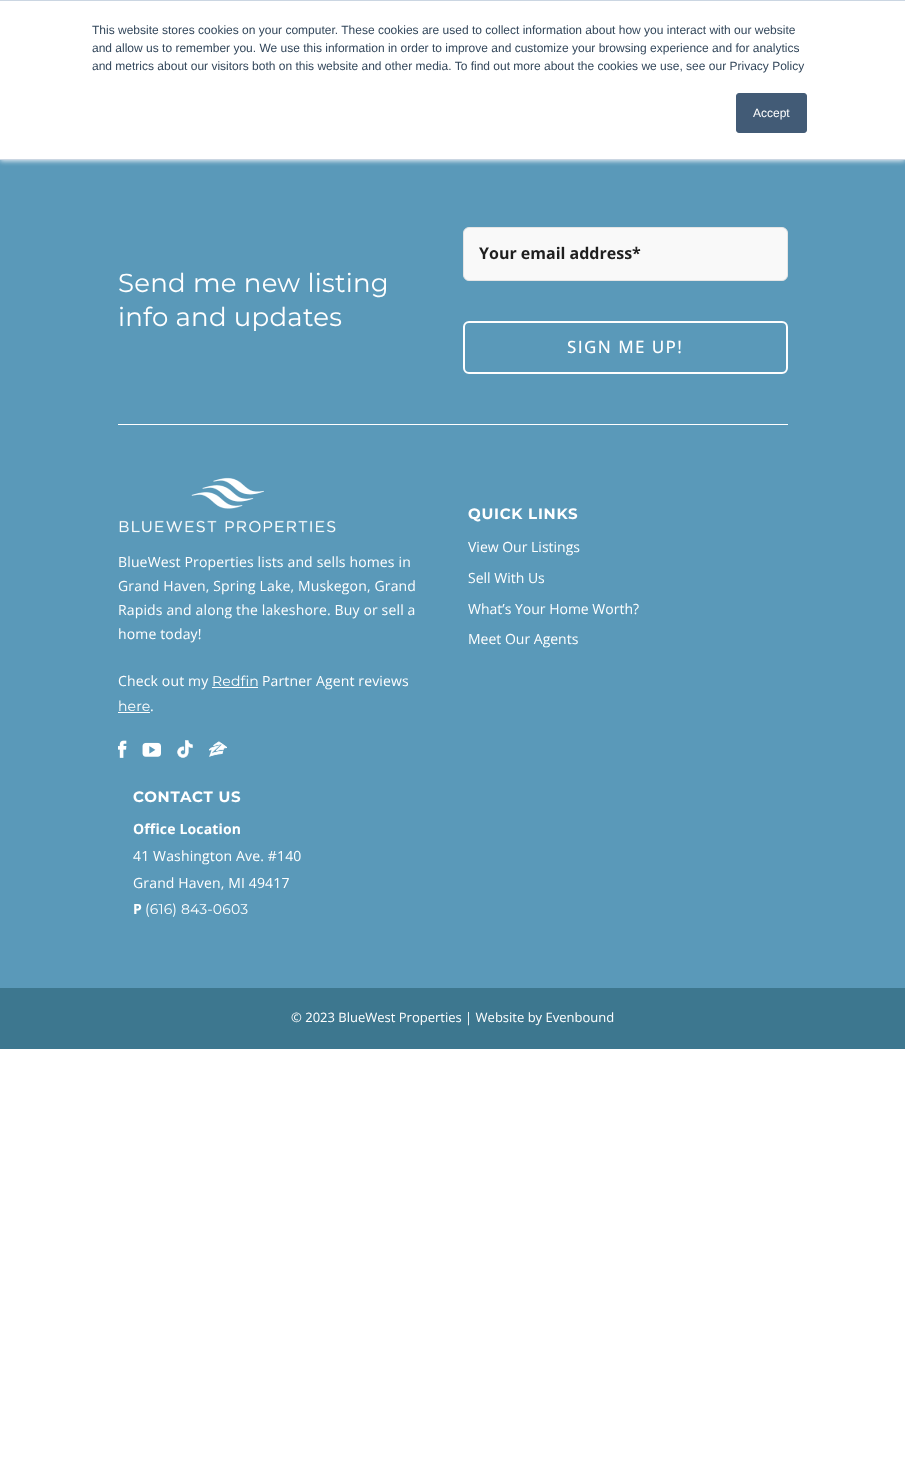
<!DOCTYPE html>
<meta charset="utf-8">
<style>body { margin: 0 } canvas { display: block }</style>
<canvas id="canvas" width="905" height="1484"></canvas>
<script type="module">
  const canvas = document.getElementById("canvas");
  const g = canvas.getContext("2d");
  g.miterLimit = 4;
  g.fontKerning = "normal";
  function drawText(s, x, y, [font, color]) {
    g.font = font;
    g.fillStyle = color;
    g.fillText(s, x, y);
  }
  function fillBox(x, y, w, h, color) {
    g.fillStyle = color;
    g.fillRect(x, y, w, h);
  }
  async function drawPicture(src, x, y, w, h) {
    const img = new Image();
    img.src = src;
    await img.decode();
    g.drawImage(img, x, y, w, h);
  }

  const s1 = ["12px Liberation Sans", "#33475B"];
  const s2 = ["12px Liberation Sans", "#FFFFFF"];
  const s3 = ["26px Montserrat", "#FFFFFF"];
  const s4 = ["bold 16px Open Sans", "#1F1F1F"];
  const s5 = ["500 17px Open Sans", "#FFFFFF"];
  const s6 = ["14px Open Sans", "#FFFFFF"];
  const s7 = ["14px Montserrat", "#FFFFFF"];
  const s8 = ["bold 15px Montserrat", "#FFFFFF"];
  const s9 = ["bold 14px Open Sans", "#FFFFFF"];
  const s10 = ["13px Open Sans", "#FFFFFF"];

  fillBox(0, 0, 905, 1484, "#FFFFFF");
  fillBox(0, 160, 905, 828, "#5A99B9");
  g.fillStyle = "#EAF0F6";
  g.filter = "blur(2.5px)";
  g.beginPath();
  g.rect(0, 1, 905, 160);
  g.fill();
  g.filter = "none";
  fillBox(0, 1, 905, 158, "#FFFFFF");
  fillBox(0, 0, 905, 1, "#CBD6E2");
  fillBox(0, 159, 905, 1, "#CBD6E2");
  drawText("This website stores cookies on your computer. These cookies are used to collect information about how you interact with our website", 92, 34, s1);
  drawText("and allow us to remember you. We use this information in order to improve and customize your browsing experience and for analytics", 92, 52, s1);
  drawText("and metrics about our visitors both on this website and other media. To find out more about the cookies we use, see our Privacy Policy", 92, 70, s1);
  g.fillStyle = "#425B76";
  g.beginPath();
  g.roundRect(736.5, 93.5, 70, 39, 2.5);
  g.fill();
  g.strokeStyle = "#425B76";
  g.stroke();
  drawText("Accept", 753, 117, s2);
  g.letterSpacing = "0.25px";
  drawText("Send me new listing", 118, 292, s3);
  drawText("info and updates", 118, 326, s3);
  g.fillStyle = "#F9F9F9";
  g.beginPath();
  g.roundRect(463.5, 227.5, 324, 53, 5.5);
  g.fill();
  g.strokeStyle = "#E5E5E5";
  g.stroke();
  g.letterSpacing = "0px";
  drawText("Your email address*", 479, 259, s4);
  g.beginPath();
  g.roundRect(464, 322, 323, 51, 5);
  g.strokeStyle = "#FFFFFF";
  g.lineWidth = 2;
  g.stroke();
  g.letterSpacing = "1.4px";
  drawText("SIGN ME UP!", 567, 353, s5);
  fillBox(118, 424, 670, 1, "#FFFFFF");
  await drawPicture("pic1.png", 119, 477, 217, 56);
  g.letterSpacing = "0.15px";
  drawText("BlueWest Properties lists and sells homes in", 118, 567, s6);
  drawText("Grand Haven, Spring Lake, Muskegon, Grand", 118, 591, s6);
  drawText("Rapids and along the lakeshore. Buy or sell a", 118, 615, s6);
  drawText("home today!", 118, 639, s6);
  drawText("Check out my", 118, 686, s6);
  drawText("Redfin", 212, 686, s7);
  fillBox(212, 687, 46, 1, "#FFFFFF");
  drawText("Partner Agent reviews", 262, 686, s6);
  drawText("here", 118, 711, s7);
  fillBox(118, 712, 32, 1, "#FFFFFF");
  drawText(".", 150, 711, s6);
  await drawPicture("pic2.png", 118, 740, 9, 18);
  await drawPicture("pic3.png", 142, 742, 19, 15);
  await drawPicture("pic4.png", 177, 740, 16, 18);
  await drawPicture("pic5.png", 209, 741, 18, 16);
  g.letterSpacing = "0.75px";
  drawText("QUICK LINKS", 468, 519, s8);
  g.letterSpacing = "0px";
  drawText("View Our Listings", 468, 552, s6);
  drawText("Sell With Us", 468, 583, s6);
  drawText("What’s Your Home Worth?", 468, 614, s6);
  drawText("Meet Our Agents", 468, 644, s6);
  g.letterSpacing = "0.75px";
  drawText("CONTACT US", 133, 802, s8);
  g.letterSpacing = "0.15px";
  drawText("Office Location", 133, 834, s9);
  drawText("41 Washington Ave. #140", 133, 861, s6);
  drawText("Grand Haven, MI 49417", 133, 888, s6);
  drawText("P", 133, 914, s9);
  drawText("(616) 843-0603", 145, 914, s7);
  fillBox(0, 988, 905, 61, "#3D778F");
  g.letterSpacing = "0px";
  drawText("© 2023 BlueWest Properties | Website by Evenbound", 291, 1022, s10);
</script>
